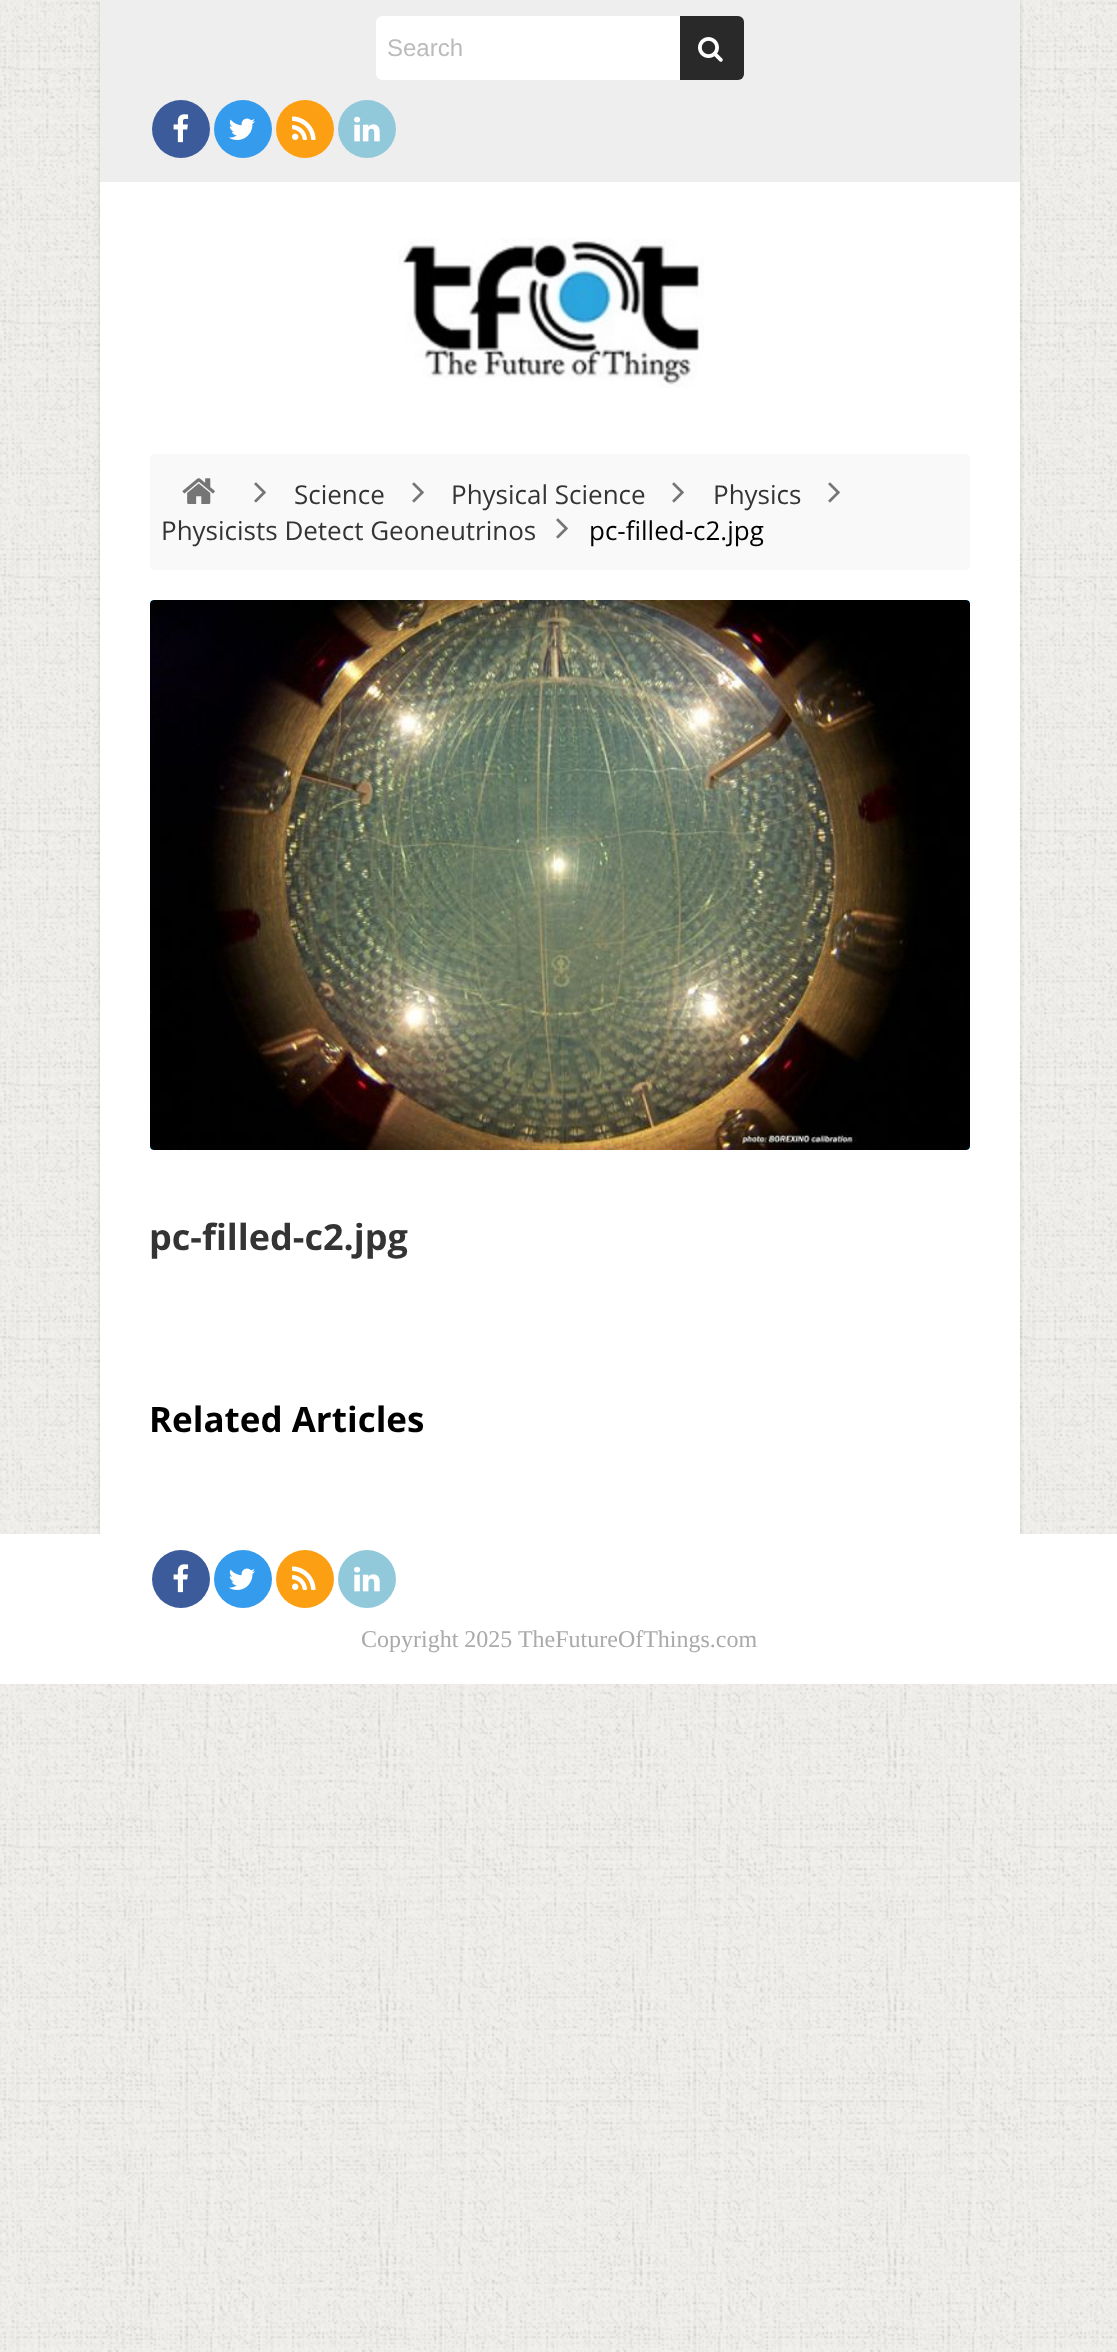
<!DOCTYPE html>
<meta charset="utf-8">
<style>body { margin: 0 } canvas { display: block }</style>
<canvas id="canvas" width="1117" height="2352"></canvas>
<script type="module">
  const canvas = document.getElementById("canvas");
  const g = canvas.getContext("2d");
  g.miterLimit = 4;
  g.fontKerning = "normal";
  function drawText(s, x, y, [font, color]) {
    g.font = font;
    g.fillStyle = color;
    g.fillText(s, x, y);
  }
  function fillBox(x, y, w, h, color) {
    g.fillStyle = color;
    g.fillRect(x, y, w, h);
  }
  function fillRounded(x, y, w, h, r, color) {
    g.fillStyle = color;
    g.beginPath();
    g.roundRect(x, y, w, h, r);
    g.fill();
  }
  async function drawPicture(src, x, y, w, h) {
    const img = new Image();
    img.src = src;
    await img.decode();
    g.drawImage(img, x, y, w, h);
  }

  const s1 = ["24px Liberation Sans", "#BBBBBB"];
  const s2 = ["26px Open Sans", "#343434"];
  const s3 = ["26px Open Sans", "#000000"];
  const s4 = ["bold 36px Open Sans", "#343434"];
  const s5 = ["bold 35px Open Sans", "#000000"];
  const s6 = ["24px Liberation Serif", "#AAAAAA"];

  fillBox(0, 0, 1117, 2352, "#FFFFFF");
  await drawPicture("pic1.png", 0, 0, 1117, 2352);
  g.fillStyle = "rgba(0, 0, 0, 0.15)";
  g.filter = "blur(2px)";
  g.beginPath();
  g.rect(100, 2, 920, 1534);
  g.fill();
  g.filter = "none";
  fillBox(100, 182, 920, 1352, "#FFFFFF");
  fillBox(100, 0, 920, 182, "#EEEEEE");
  g.fillStyle = "#FFFFFF";
  g.beginPath();
  g.roundRect(376, 16, 304, 64, [6, 0, 0, 6]);
  g.fill();
  drawText("Search", 387, 56, s1);
  g.fillStyle = "#29292A";
  g.beginPath();
  g.roundRect(680, 16, 64, 64, [0, 6, 6, 0]);
  g.fill();
  await drawPicture("pic2.png", 698, 37, 25, 25);
  g.fillStyle = "#3C5B9B";
  g.beginPath();
  g.arc(181, 129, 29, 0, Math.PI * 2);
  g.fill();
  await drawPicture("pic3.png", 173, 114, 16, 29);
  g.fillStyle = "#359BED";
  g.beginPath();
  g.arc(243, 129, 29, 0, Math.PI * 2);
  g.fill();
  await drawPicture("pic4.png", 229, 118, 26, 22);
  g.fillStyle = "#FD9F13";
  g.beginPath();
  g.arc(305, 129, 29, 0, Math.PI * 2);
  g.fill();
  await drawPicture("pic5.png", 292, 116, 24, 24);
  g.fillStyle = "#91C9DB";
  g.beginPath();
  g.arc(367, 129, 29, 0, Math.PI * 2);
  g.fill();
  await drawPicture("pic6.png", 354, 116, 26, 26);
  await drawPicture("pic7.png", 398, 238, 306, 150);
  fillRounded(150, 454, 820, 116, 4, "#F9F9F9");
  await drawPicture("pic8.png", 182, 478, 33, 26);
  await drawPicture("pic9.png", 254, 482, 12, 21);
  drawText("Science", 294, 504, s2);
  await drawPicture("pic9.png", 412, 482, 12, 21);
  drawText("Physical Science", 451, 504, s2);
  await drawPicture("pic9.png", 672, 482, 12, 21);
  drawText("Physics", 713, 504, s2);
  await drawPicture("pic9.png", 828, 482, 12, 21);
  drawText("Physicists Detect Geoneutrinos", 161, 540, s2);
  await drawPicture("pic9.png", 556, 518, 12, 21);
  drawText("pc-filled-c2.jpg", 589, 540, s3);
  fillRounded(150, 600, 820, 550, 4, "#00B4DC");
  await drawPicture("pic10.png", 150, 600, 820, 550);
  drawText("pc-filled-c2.jpg", 149, 1250, s4);
  drawText("Related Articles", 149, 1432, s5);
  fillBox(0, 1534, 1117, 150, "#FFFFFF");
  g.fillStyle = "#3C5B9B";
  g.beginPath();
  g.arc(181, 1579, 29, 0, Math.PI * 2);
  g.fill();
  await drawPicture("pic3.png", 173, 1564, 16, 29);
  g.fillStyle = "#359BED";
  g.beginPath();
  g.arc(243, 1579, 29, 0, Math.PI * 2);
  g.fill();
  await drawPicture("pic4.png", 229, 1568, 26, 22);
  g.fillStyle = "#FD9F13";
  g.beginPath();
  g.arc(305, 1579, 29, 0, Math.PI * 2);
  g.fill();
  await drawPicture("pic5.png", 292, 1566, 24, 24);
  g.fillStyle = "#91C9DB";
  g.beginPath();
  g.arc(367, 1579, 29, 0, Math.PI * 2);
  g.fill();
  await drawPicture("pic6.png", 354, 1566, 26, 26);
  drawText("Copyright 2025 TheFutureOfThings.com", 361, 1647, s6);
</script>
